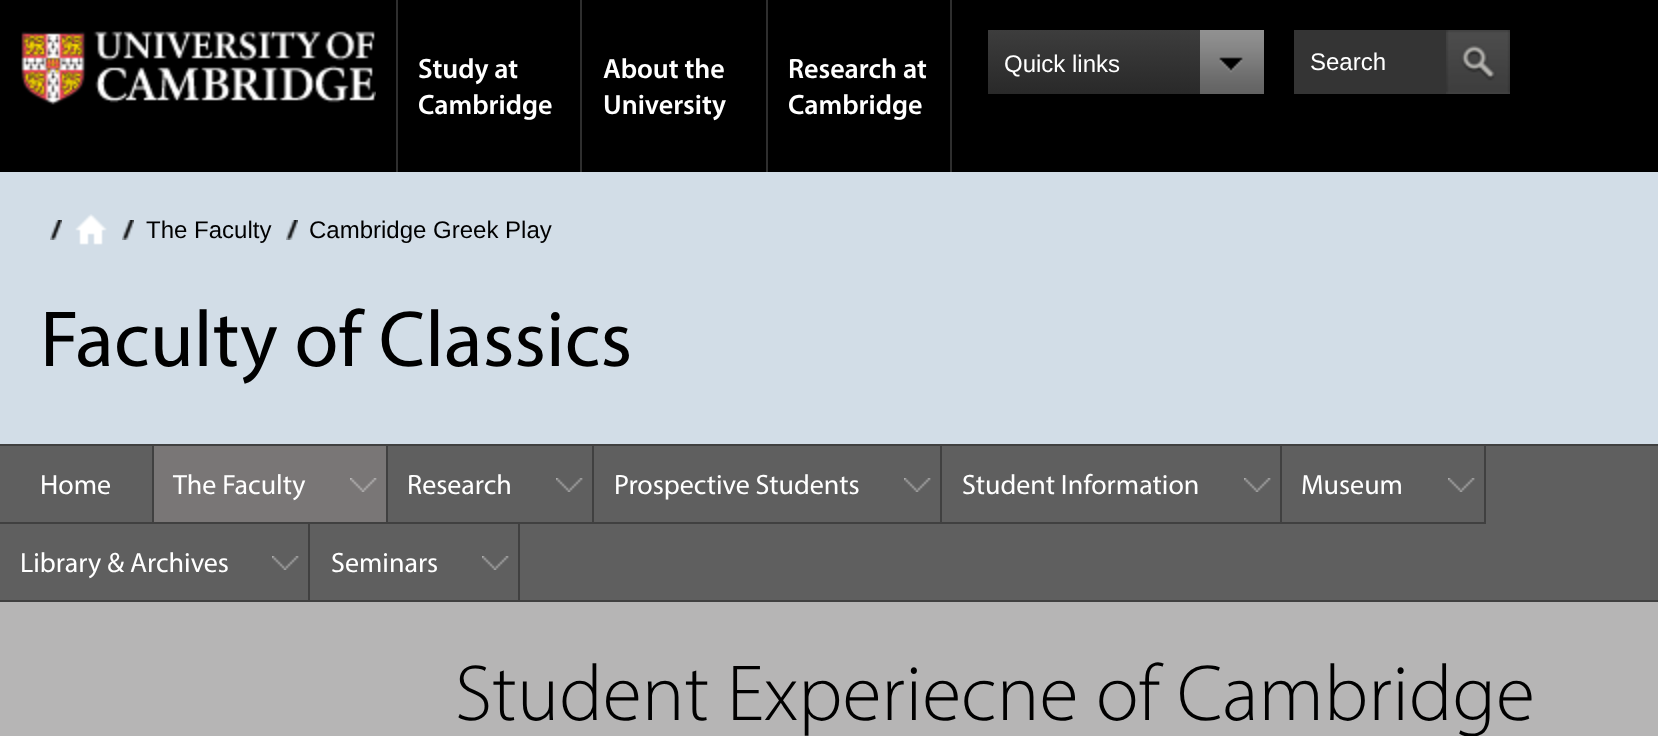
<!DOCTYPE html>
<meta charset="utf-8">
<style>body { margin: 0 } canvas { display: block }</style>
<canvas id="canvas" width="1658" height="736"></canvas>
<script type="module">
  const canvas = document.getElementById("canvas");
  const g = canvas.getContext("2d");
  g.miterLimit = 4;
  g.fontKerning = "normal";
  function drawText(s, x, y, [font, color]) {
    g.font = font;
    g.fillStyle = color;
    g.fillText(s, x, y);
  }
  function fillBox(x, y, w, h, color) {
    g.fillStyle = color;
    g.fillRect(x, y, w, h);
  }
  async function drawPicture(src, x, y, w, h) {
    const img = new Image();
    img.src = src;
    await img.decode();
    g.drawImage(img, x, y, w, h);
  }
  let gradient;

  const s1 = ["600 28px Myriad", "#FFFFFF"];
  const s2 = ["24px Liberation Sans", "#FFFFFF"];
  const s3 = ["24px Liberation Sans", "#000000"];
  const s4 = ["80px Myriad", "#000000"];
  const s5 = ["28px Myriad", "#FFFFFF"];
  const s6 = ["300 80px Myriad", "#000000"];

  fillBox(0, 0, 1658, 736, "#000000");
  await drawPicture("pic1.png", 21, 31, 355, 74);
  fillBox(396, 0, 2, 172, "#2E2E2E");
  fillBox(580, 0, 2, 172, "#2E2E2E");
  drawText("Study at", 418, 78, s1);
  drawText("Cambridge", 418, 114, s1);
  fillBox(766, 0, 2, 172, "#2E2E2E");
  drawText("About the", 603, 78, s1);
  drawText("University", 603, 114, s1);
  fillBox(950, 0, 2, 172, "#2E2E2E");
  drawText("Research at", 788, 78, s1);
  drawText("Cambridge", 788, 114, s1);
  gradient = g.createLinearGradient(1126, 30, 1126, 94);
  gradient.addColorStop(0, "#3D3D3D");
  gradient.addColorStop(1, "#292929");
  g.fillStyle = gradient;
  g.fillRect(988, 30, 212, 64);
  drawText("Quick links", 1004, 72, s2);
  await drawPicture("pic2.png", 1200, 30, 64, 64);
  fillBox(1294, 30, 152, 64, "#343434");
  drawText("Search", 1310, 70, s2);
  await drawPicture("pic3.png", 1446, 30, 64, 64);
  fillBox(0, 172, 1658, 272, "#D2DDE7");
  await drawPicture("pic4.png", 50, 220, 12, 20);
  await drawPicture("pic5.png", 75, 214, 32, 31);
  await drawPicture("pic4.png", 122, 220, 12, 20);
  drawText("The Faculty", 146, 238, s3);
  await drawPicture("pic4.png", 286, 220, 12, 20);
  drawText("Cambridge Greek Play", 309, 238, s3);
  drawText("Faculty of Classics", 40, 366, s4);
  fillBox(520, 446, 1138, 154, "#5F5F5F");
  fillBox(1486, 444, 172, 2, "#404040");
  fillBox(520, 600, 1138, 2, "#404040");
  fillBox(0, 446, 152, 76, "#5F5F5F");
  fillBox(0, 444, 1486, 2, "#404040");
  fillBox(152, 444, 2, 80, "#404040");
  drawText("Home", 40, 494, s5);
  fillBox(154, 446, 232, 76, "#797676");
  await drawPicture("pic6.png", 350, 478, 27, 14);
  fillBox(386, 444, 2, 80, "#404040");
  drawText("The Faculty", 173, 494, s5);
  fillBox(388, 446, 132, 76, "#5F5F5F");
  await drawPicture("pic7.png", 556, 478, 27, 14);
  fillBox(592, 444, 2, 80, "#404040");
  fillBox(520, 522, 74, 2, "#404040");
  drawText("Research", 407, 494, s5);
  await drawPicture("pic7.png", 904, 478, 27, 14);
  fillBox(940, 444, 2, 80, "#404040");
  fillBox(594, 522, 348, 2, "#404040");
  drawText("Prospective Students", 614, 494, s5);
  await drawPicture("pic7.png", 1244, 478, 27, 14);
  fillBox(1280, 444, 2, 80, "#404040");
  fillBox(942, 522, 340, 2, "#404040");
  drawText("Student Information", 962, 494, s5);
  await drawPicture("pic7.png", 1448, 478, 27, 14);
  fillBox(1484, 444, 2, 80, "#404040");
  fillBox(1282, 522, 204, 2, "#404040");
  drawText("Museum", 1301, 494, s5);
  fillBox(0, 524, 308, 76, "#5F5F5F");
  await drawPicture("pic7.png", 272, 556, 27, 14);
  fillBox(0, 522, 520, 2, "#404040");
  fillBox(308, 522, 2, 80, "#404040");
  fillBox(0, 600, 310, 2, "#404040");
  drawText("Library & Archives", 20, 572, s5);
  fillBox(310, 524, 208, 76, "#5F5F5F");
  await drawPicture("pic7.png", 482, 556, 27, 14);
  fillBox(518, 522, 2, 80, "#404040");
  fillBox(310, 600, 210, 2, "#404040");
  drawText("Seminars", 331, 572, s5);
  fillBox(0, 602, 1658, 134, "#B6B5B5");
  drawText("Student Experiecne of Cambridge", 455, 720, s6);
</script>
